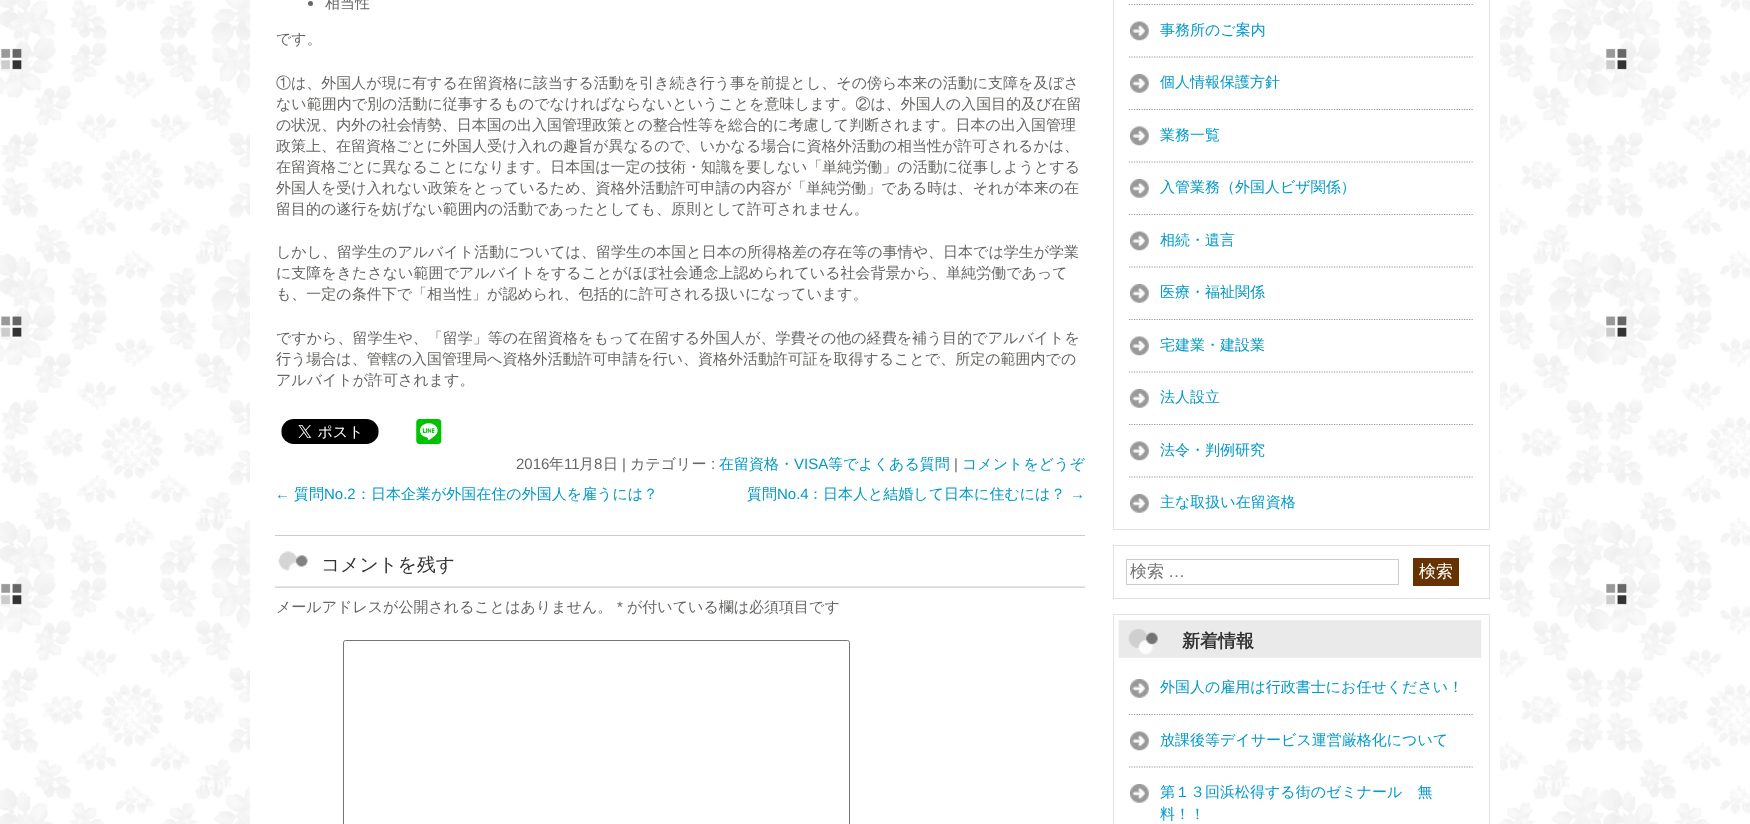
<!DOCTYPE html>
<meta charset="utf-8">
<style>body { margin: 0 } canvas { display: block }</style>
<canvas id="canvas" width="1750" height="824"></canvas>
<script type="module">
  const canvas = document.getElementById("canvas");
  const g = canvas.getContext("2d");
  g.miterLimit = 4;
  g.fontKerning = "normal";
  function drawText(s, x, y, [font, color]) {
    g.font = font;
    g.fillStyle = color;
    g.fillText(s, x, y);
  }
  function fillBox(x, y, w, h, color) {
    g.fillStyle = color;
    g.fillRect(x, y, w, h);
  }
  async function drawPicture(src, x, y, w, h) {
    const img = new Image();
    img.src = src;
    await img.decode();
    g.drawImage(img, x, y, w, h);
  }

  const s1 = ["500 15px WenQuanYi Zen Hei", "#676664"];
  const s2 = ["15px Liberation Sans", "#676664"];
  const s3 = ["500 15px WenQuanYi Zen Hei", "#0099CC"];
  const s4 = ["15px Liberation Sans", "#0099CC"];
  const s5 = ["500 18.75px WenQuanYi Zen Hei", "#333333"];
  const s6 = ["500 17px WenQuanYi Zen Hei", "#757575"];
  const s7 = ["17px Liberation Sans", "#757575"];
  const s8 = ["500 17px WenQuanYi Zen Hei", "#FFFFFF"];
  const s9 = ["bold 18px WenQuanYi Zen Hei", "#333333"];

  fillBox(0, 0, 1750, 824, "#FFFFFF");
  await drawPicture("pic1.png", 0, 0, 1750, 824);
  fillBox(250, 0, 1250, 824, "#FFFFFF");
  g.fillStyle = "#676664";
  g.beginPath();
  g.arc(310.5, 3.5, 2.5, 0, Math.PI * 2);
  g.fill();
  drawText("相当性", 325, 8, s1);
  drawText("です。", 276, 44, s1);
  drawText("①は、外国人が現に有する在留資格に該当する活動を引き続き行う事を前提とし、その傍ら本来の活動に支障を及ぼさ", 276, 88, s1);
  drawText("ない範囲内で別の活動に従事するものでなければならないということを意味します。②は、外国人の入国目的及び在留", 276, 109, s1);
  drawText("の状況、内外の社会情勢、日本国の出入国管理政策との整合性等を総合的に考慮して判断されます。日本の出入国管理", 276, 130, s1);
  drawText("政策上、在留資格ごとに外国人受け入れの趣旨が異なるので、いかなる場合に資格外活動の相当性が許可されるかは、", 276, 151, s1);
  drawText("在留資格ごとに異なることになります。日本国は一定の技術・知識を要しない「単純労働」の活動に従事しようとする", 276, 172, s1);
  drawText("外国人を受け入れない政策をとっているため、資格外活動許可申請の内容が「単純労働」である時は、それが本来の在", 276, 193, s1);
  drawText("留目的の遂行を妨げない範囲内の活動であったとしても、原則として許可されません。", 276, 214, s1);
  drawText("しかし、留学生のアルバイト活動については、留学生の本国と日本の所得格差の存在等の事情や、日本では学生が学業", 276, 257, s1);
  drawText("に支障をきたさない範囲でアルバイトをすることがほぼ社会通念上認められている社会背景から、単純労働であって", 276, 278, s1);
  drawText("も、一定の条件下で「相当性」が認められ、包括的に許可される扱いになっています。", 276, 299, s1);
  drawText("ですから、留学生や、「留学」等の在留資格をもって在留する外国人が、学費その他の経費を補う目的でアルバイトを", 276, 343, s1);
  drawText("行う場合は、管轄の入国管理局へ資格外活動許可申請を行い、資格外活動許可証を取得することで、所定の範囲内での", 276, 364, s1);
  drawText("アルバイトが許可されます。", 276, 385, s1);
  await drawPicture("pic2.png", 281, 419, 98, 25);
  await drawPicture("pic3.png", 416, 419, 26, 25);
  drawText("2016", 516, 469, s2);
  drawText("年", 549, 469, s1);
  drawText("11", 564, 469, s2);
  drawText("月", 579, 469, s1);
  drawText("8", 594, 469, s2);
  drawText("日", 603, 469, s1);
  drawText("|", 622, 469, s2);
  drawText("カテゴリー", 630, 469, s1);
  drawText(":", 711, 469, s2);
  drawText("在留資格・", 719, 469, s3);
  drawText("VISA", 794, 469, s4);
  drawText("等でよくある質問", 828, 469, s3);
  drawText("|", 954, 469, s2);
  drawText("コメントをどうぞ", 962, 469, s3);
  fillBox(275, 535, 810, 1, "#CCCCCC");
  drawText("←", 275, 499, s4);
  drawText("質問", 294, 499, s3);
  drawText("No.2", 324, 499, s4);
  drawText("：日本企業が外国在住の外国人を雇うには？", 356, 499, s3);
  drawText("質問", 747, 499, s3);
  drawText("No.4", 777, 499, s4);
  drawText("：日本人と結婚して日本に住むには？", 808, 499, s3);
  drawText("→", 1070, 499, s4);
  await drawPicture("pic4.png", 275, 551, 810, 37);
  drawText("コメントを残す", 321, 571, s5);
  drawText("メールアドレスが公開されることはありません。", 276, 612, s1);
  drawText("*", 617, 612, s2);
  drawText("が付いている欄は必須項目です", 627, 612, s1);
  g.beginPath();
  g.roundRect(343.5, 640.5, 506, 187, 2);
  g.strokeStyle = "#767676";
  g.stroke();
  g.strokeStyle = "#E8E2DF";
  g.strokeRect(1113.5, -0.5, 376, 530);
  g.beginPath();
  g.moveTo(1129, 4.5);
  g.lineTo(1474, 4.5);
  g.strokeStyle = "#999999";
  g.lineWidth = 1.2;
  g.setLineDash([1.25, 1.25]);
  g.stroke();
  fillBox(1129, 5, 344, 1, "#FFFFFF");
  await drawPicture("pic5.png", 1130, 21, 19, 20);
  g.beginPath();
  g.moveTo(1129, 57);
  g.lineTo(1474, 57);
  g.stroke();
  drawText("事務所のご案内", 1160, 35, s3);
  await drawPicture("pic6.png", 1130, 74, 19, 19);
  g.beginPath();
  g.moveTo(1129, 109.5);
  g.lineTo(1474, 109.5);
  g.stroke();
  drawText("個人情報保護方針", 1160, 87, s3);
  fillBox(1129, 110, 344, 1, "#FFFFFF");
  await drawPicture("pic5.png", 1130, 126, 19, 20);
  g.beginPath();
  g.moveTo(1129, 162);
  g.lineTo(1474, 162);
  g.stroke();
  drawText("業務一覧", 1160, 140, s3);
  await drawPicture("pic6.png", 1130, 179, 19, 19);
  g.beginPath();
  g.moveTo(1129, 214.5);
  g.lineTo(1474, 214.5);
  g.stroke();
  drawText("入管業務（外国人ビザ関係）", 1160, 192, s3);
  fillBox(1129, 215, 344, 1, "#FFFFFF");
  await drawPicture("pic5.png", 1130, 231, 19, 20);
  g.beginPath();
  g.moveTo(1129, 267);
  g.lineTo(1474, 267);
  g.stroke();
  drawText("相続・遺言", 1160, 245, s3);
  await drawPicture("pic6.png", 1130, 284, 19, 19);
  g.beginPath();
  g.moveTo(1129, 319.5);
  g.lineTo(1474, 319.5);
  g.stroke();
  drawText("医療・福祉関係", 1160, 297, s3);
  fillBox(1129, 320, 344, 1, "#FFFFFF");
  await drawPicture("pic5.png", 1130, 336, 19, 20);
  g.beginPath();
  g.moveTo(1129, 372);
  g.lineTo(1474, 372);
  g.stroke();
  drawText("宅建業・建設業", 1160, 350, s3);
  await drawPicture("pic6.png", 1130, 389, 19, 19);
  g.beginPath();
  g.moveTo(1129, 424.5);
  g.lineTo(1474, 424.5);
  g.stroke();
  drawText("法人設立", 1160, 402, s3);
  fillBox(1129, 425, 344, 1, "#FFFFFF");
  await drawPicture("pic5.png", 1130, 441, 19, 20);
  g.beginPath();
  g.moveTo(1129, 477);
  g.lineTo(1474, 477);
  g.stroke();
  drawText("法令・判例研究", 1160, 455, s3);
  await drawPicture("pic6.png", 1130, 494, 19, 19);
  drawText("主な取扱い在留資格", 1160, 507, s3);
  g.strokeStyle = "#E8E2DF";
  g.lineWidth = 1;
  g.setLineDash([]);
  g.strokeRect(1113.5, 545.5, 376, 53);
  g.strokeStyle = "#CCCCCC";
  g.strokeRect(1126.5, 559.5, 272, 25);
  drawText("検索", 1130, 577, s6);
  drawText("…", 1168, 577, s7);
  fillBox(1413, 558, 46, 28, "#663300");
  drawText("検索", 1419, 577, s8);
  g.strokeStyle = "#E8E2DF";
  g.strokeRect(1113.5, 614.5, 376, 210);
  await drawPicture("pic7.png", 1118, 620, 364, 38);
  drawText("新着情報", 1182, 647, s9);
  await drawPicture("pic6.png", 1130, 679, 19, 19);
  g.beginPath();
  g.moveTo(1129, 714.5);
  g.lineTo(1474, 714.5);
  g.strokeStyle = "#999999";
  g.lineWidth = 1.2;
  g.setLineDash([1.25, 1.25]);
  g.stroke();
  drawText("外国人の雇用は行政書士にお任せください！", 1160, 692, s3);
  fillBox(1129, 715, 344, 1, "#FFFFFF");
  await drawPicture("pic5.png", 1130, 731, 19, 20);
  g.beginPath();
  g.moveTo(1129, 767);
  g.lineTo(1474, 767);
  g.stroke();
  drawText("放課後等デイサービス運営厳格化について", 1160, 745, s3);
  await drawPicture("pic6.png", 1130, 784, 19, 19);
  drawText("第１３回浜松得する街のゼミナール　無", 1160, 797, s3);
  drawText("料！！", 1160, 819, s3);
</script>
